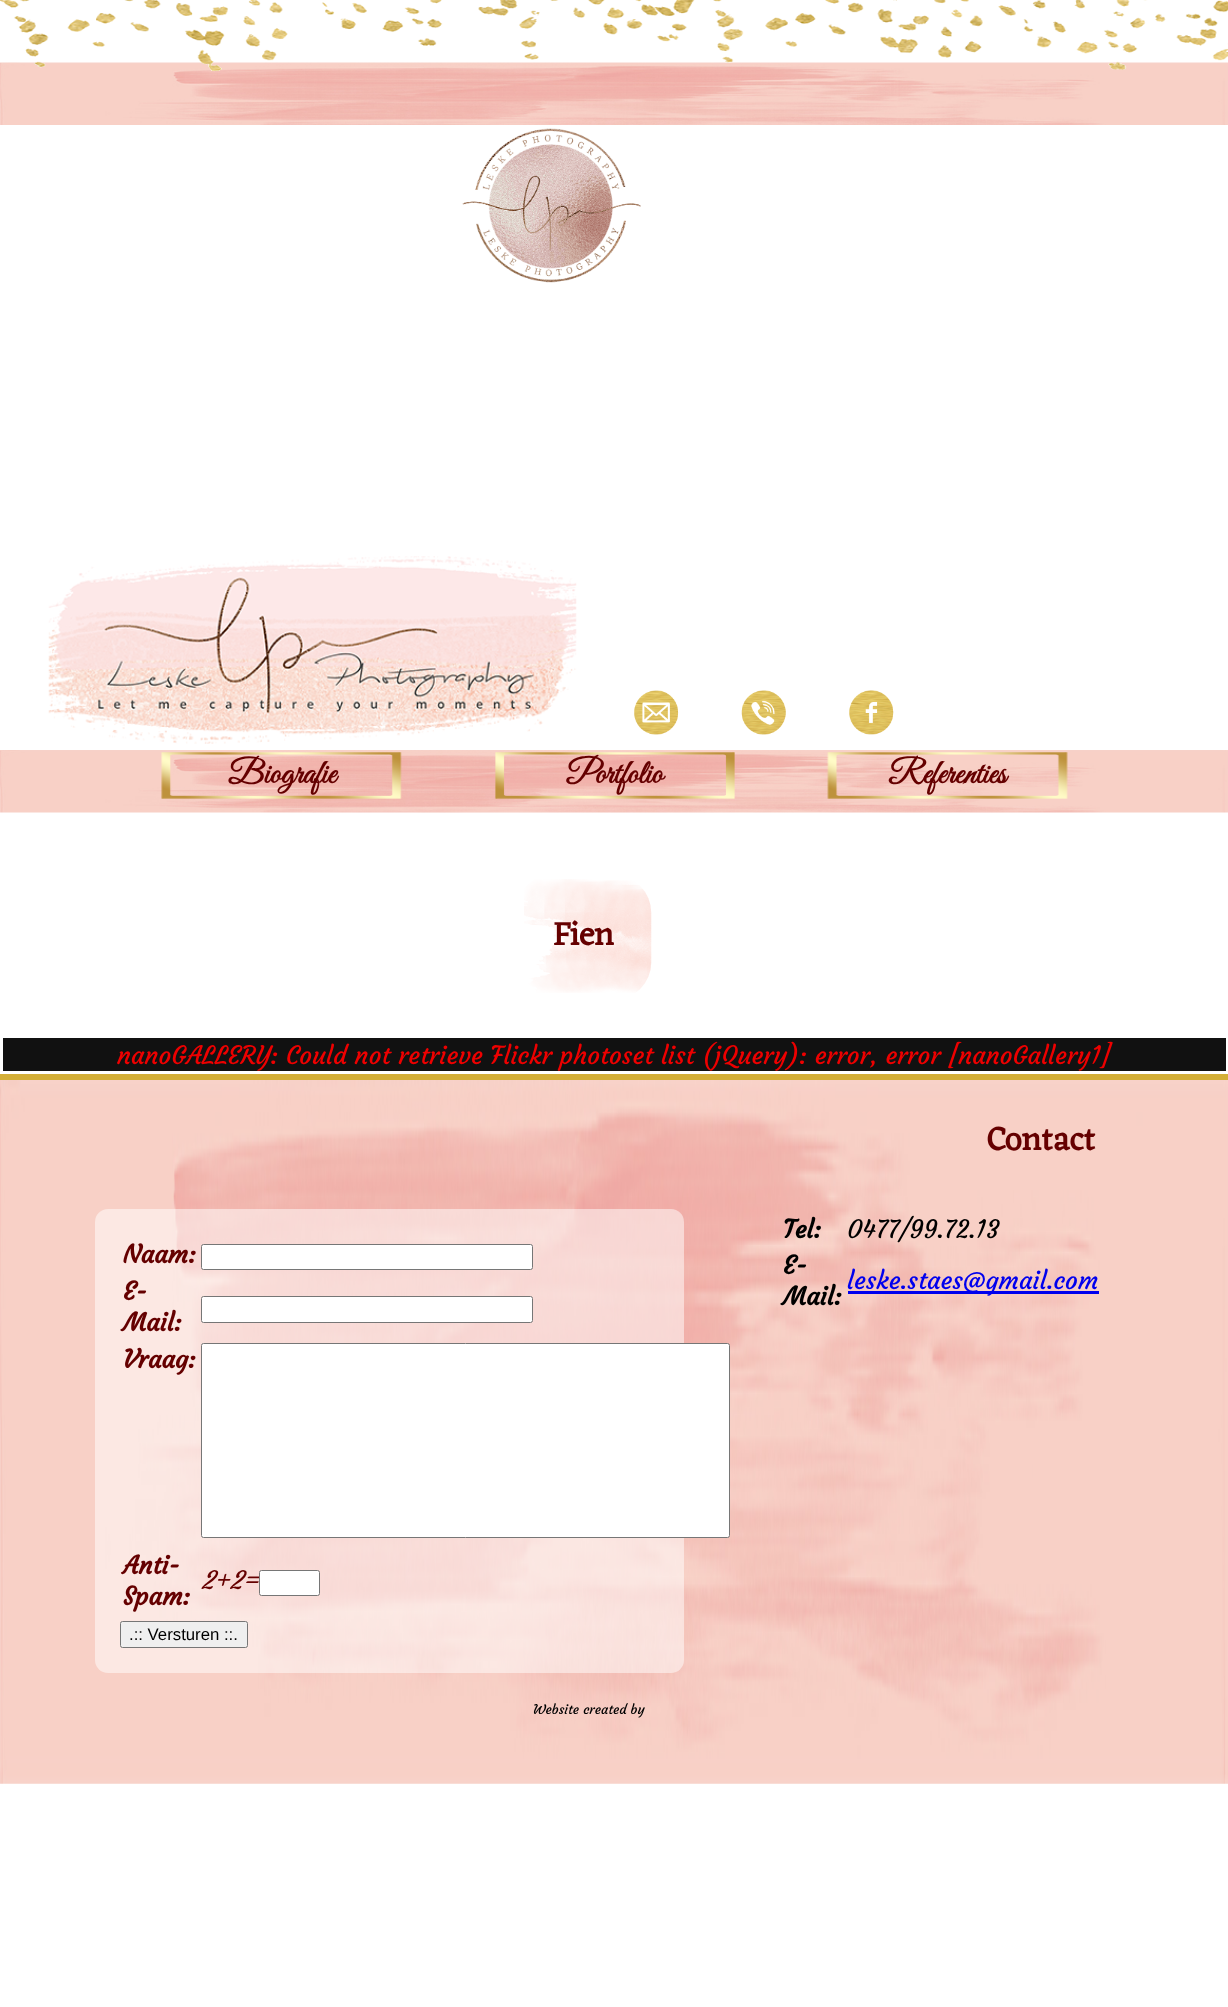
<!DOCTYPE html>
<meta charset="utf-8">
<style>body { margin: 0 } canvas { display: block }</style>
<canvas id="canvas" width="1228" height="2007"></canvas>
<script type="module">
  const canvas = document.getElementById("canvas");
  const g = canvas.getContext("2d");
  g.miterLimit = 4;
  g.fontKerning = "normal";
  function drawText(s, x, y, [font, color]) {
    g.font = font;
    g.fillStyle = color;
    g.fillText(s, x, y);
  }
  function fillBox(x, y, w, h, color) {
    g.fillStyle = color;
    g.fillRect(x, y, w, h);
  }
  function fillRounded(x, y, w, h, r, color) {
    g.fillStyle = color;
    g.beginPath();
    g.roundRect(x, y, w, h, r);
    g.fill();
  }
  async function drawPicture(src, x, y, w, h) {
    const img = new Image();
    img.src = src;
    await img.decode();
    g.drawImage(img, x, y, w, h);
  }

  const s1 = ["bold 33.5px Great Vibes", "#650000"];
  const s2 = ["bold 33.5px Eczar", "#650000"];
  const s3 = ["25px Courgette", "#EE0000"];
  const s4 = ["bold 25px Courgette", "#650000"];
  const s5 = ["italic 25px Courgette", "#650000"];
  const s6 = ["16.75px Liberation Sans", "#000000"];
  const s7 = ["bold 25px Courgette", "#000000"];
  const s8 = ["25px Courgette", "#000000"];
  const s9 = ["25px Courgette", "#0000EE"];
  const s10 = ["13.25px Courgette", "#000000"];

  fillBox(0, 0, 1228, 2007, "#FFFFFF");
  await drawPicture("pic2.png", 0, 62, 1228, 63);
  await drawPicture("pic1.png", 0, 0, 1228, 72);
  await drawPicture("pic3.png", 462, 128, 179, 155);
  await drawPicture("pic4.png", 48, 556, 529, 188);
  await drawPicture("pic5.png", 634, 690, 45, 45);
  await drawPicture("pic6.png", 741, 690, 45, 45);
  await drawPicture("pic7.png", 849, 690, 45, 45);
  await drawPicture("pic8.png", 0, 750, 1228, 63);
  await drawPicture("pic9.png", 161, 752, 241, 47);
  drawText("Biografie", 228, 783, s1);
  await drawPicture("pic10.png", 495, 752, 240, 47);
  drawText("Portfolio", 566, 783, s1);
  await drawPicture("pic11.png", 827, 752, 241, 47);
  drawText("Referenties", 888, 783, s1);
  await drawPicture("pic12.png", 524, 879, 128, 114);
  drawText("Fien", 553, 945, s2);
  fillBox(3, 1038, 1223, 33, "#111111");
  drawText("nanoGALLERY: Could not retrieve Flickr photoset list (jQuery): error, error [nanoGallery1]", 117, 1064, s3);
  await drawPicture("pic13.png", 0, 1080, 1228, 704);
  fillBox(0, 1074, 1228, 6, "#D4AF37");
  drawText("Contact", 987, 1150, s2);
  fillRounded(95, 1209, 589, 464, 13, "rgba(255, 255, 255, 0.5)");
  drawText("Naam:", 123, 1263, s4);
  g.fillStyle = "#FFFFFF";
  g.beginPath();
  g.roundRect(201.5, 1244.5, 331, 25, 2);
  g.fill();
  g.strokeStyle = "#767676";
  g.stroke();
  drawText("E-", 123, 1300, s4);
  drawText("Mail:", 123, 1331, s4);
  g.fillStyle = "#FFFFFF";
  g.beginPath();
  g.roundRect(201.5, 1296.5, 331, 26, 2);
  g.fill();
  g.stroke();
  drawText("Vraag:", 123, 1368, s4);
  g.fillStyle = "#FFFFFF";
  g.beginPath();
  g.roundRect(201.5, 1343.5, 528, 194, 2);
  g.fill();
  g.stroke();
  drawText("Anti-", 123, 1574, s4);
  drawText("Spam:", 123, 1605, s4);
  drawText("2+2=", 201, 1589, s5);
  g.fillStyle = "#FFFFFF";
  g.beginPath();
  g.roundRect(259.5, 1570.5, 60, 25, 2);
  g.fill();
  g.stroke();
  g.fillStyle = "#EFEFEF";
  g.beginPath();
  g.roundRect(120.5, 1621.5, 127, 26, 2);
  g.fill();
  g.stroke();
  drawText(".:: Versturen ::.", 129, 1640, s6);
  drawText("Tel:", 783, 1238, s7);
  drawText("0477/99.72.13", 847, 1238, s8);
  drawText("E-", 783, 1274, s7);
  drawText("Mail:", 783, 1305, s7);
  fillBox(848, 1291, 251, 3, "#0000EE");
  drawText("leske.staes@gmail.com", 847, 1289, s9);
  drawText("Website created by", 533, 1714, s10);
</script>
